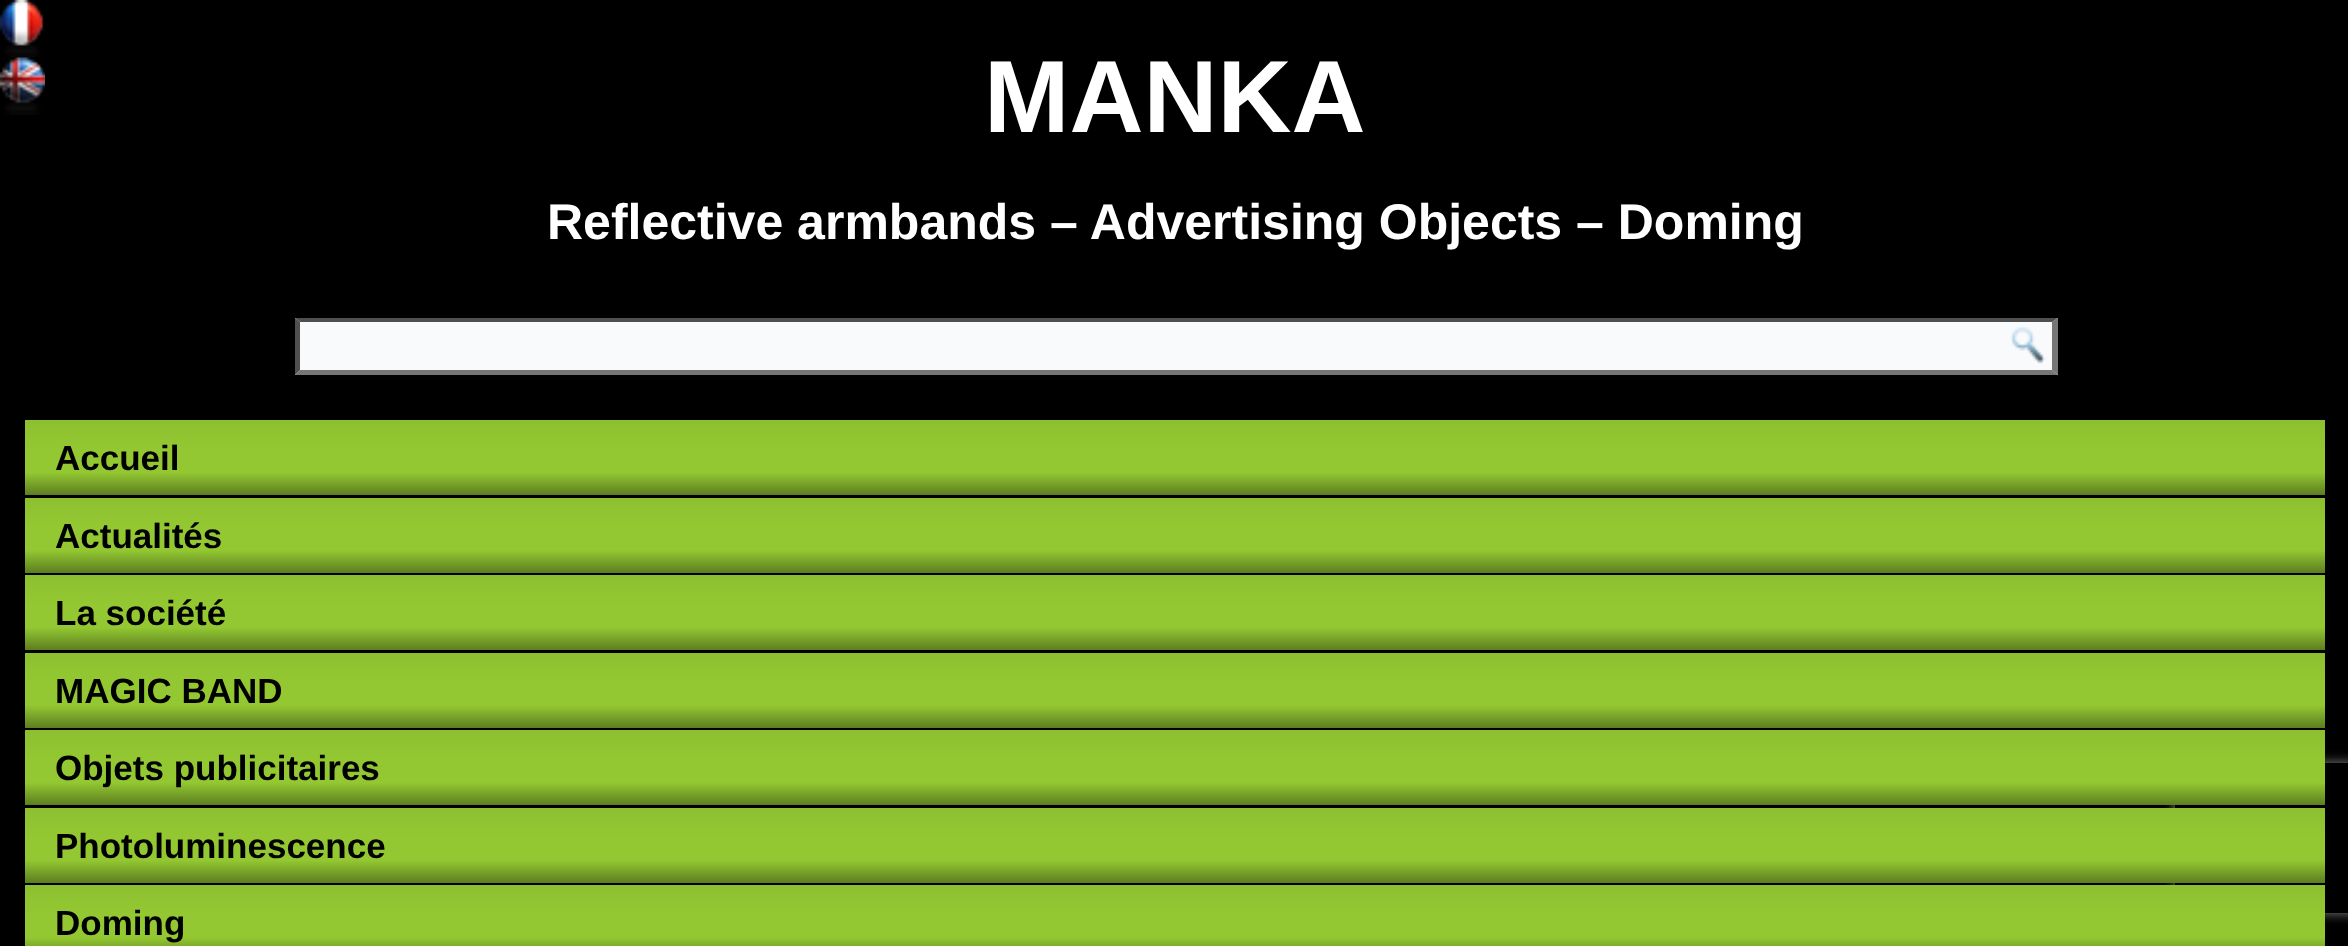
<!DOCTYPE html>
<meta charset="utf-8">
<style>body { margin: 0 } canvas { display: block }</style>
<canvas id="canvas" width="2348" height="946"></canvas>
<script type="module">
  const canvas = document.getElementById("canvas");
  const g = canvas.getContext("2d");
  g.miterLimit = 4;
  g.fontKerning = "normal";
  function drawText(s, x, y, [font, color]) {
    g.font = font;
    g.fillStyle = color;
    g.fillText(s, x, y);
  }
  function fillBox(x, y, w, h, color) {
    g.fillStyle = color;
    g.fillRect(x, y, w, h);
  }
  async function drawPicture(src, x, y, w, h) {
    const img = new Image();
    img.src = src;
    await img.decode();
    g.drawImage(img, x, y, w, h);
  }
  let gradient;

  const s1 = ["bold 102.5px Liberation Sans", "#FFFFFF"];
  const s2 = ["bold 50px Liberation Sans", "#FFFFFF"];
  const s3 = ["bold 35px Liberation Sans", "#000000"];

  fillBox(0, 0, 2348, 946, "#000000");
  await drawPicture("pic1.png", 0, 0, 44, 57);
  await drawPicture("pic2.png", 0, 57, 45, 58);
  drawText("MANKA", 984, 132, s1);
  drawText("Reflective armbands – Advertising Objects – Doming", 547, 239, s2);
  fillBox(295, 318, 1763, 57, "#F9FAFB");
  g.fillStyle = "#4F4F4F";
  g.beginPath();
  g.moveTo(295, 318);
  g.lineTo(2058, 318);
  g.lineTo(2052, 322);
  g.lineTo(300, 322);
  g.closePath();
  g.fill();
  g.fillStyle = "#767676";
  g.beginPath();
  g.moveTo(2058, 318);
  g.lineTo(2058, 375);
  g.lineTo(2052, 370);
  g.lineTo(2052, 322);
  g.closePath();
  g.fill();
  g.beginPath();
  g.moveTo(2058, 375);
  g.lineTo(295, 375);
  g.lineTo(300, 370);
  g.lineTo(2052, 370);
  g.closePath();
  g.fill();
  g.fillStyle = "#4F4F4F";
  g.beginPath();
  g.moveTo(295, 375);
  g.lineTo(295, 318);
  g.lineTo(300, 322);
  g.lineTo(300, 370);
  g.closePath();
  g.fill();
  await drawPicture("pic3.png", 2010, 327, 36, 37);
  gradient = g.createLinearGradient(1175, 420, 1175, 495);
  gradient.addColorStop(0, "#8DC030");
  gradient.addColorStop(0.4, "#93C832");
  gradient.addColorStop(0.7, "#93C832");
  gradient.addColorStop(1, "#5D7E20");
  g.fillStyle = gradient;
  g.fillRect(25, 420, 2300, 75);
  drawText("Accueil", 55, 470, s3);
  gradient = g.createLinearGradient(1175, 497, 1175, 573);
  gradient.addColorStop(0, "#8DC030");
  gradient.addColorStop(0.4, "#93C832");
  gradient.addColorStop(0.7, "#93C832");
  gradient.addColorStop(1, "#5D7E20");
  g.fillStyle = gradient;
  g.fillRect(25, 498, 2300, 75);
  drawText("Actualités", 55, 548, s3);
  gradient = g.createLinearGradient(1175, 575, 1175, 650);
  gradient.addColorStop(0, "#8DC030");
  gradient.addColorStop(0.4, "#93C832");
  gradient.addColorStop(0.7, "#93C832");
  gradient.addColorStop(1, "#5D7E20");
  g.fillStyle = gradient;
  g.fillRect(25, 575, 2300, 75);
  drawText("La société", 55, 625, s3);
  gradient = g.createLinearGradient(1175, 652, 1175, 728);
  gradient.addColorStop(0, "#8DC030");
  gradient.addColorStop(0.4, "#93C832");
  gradient.addColorStop(0.7, "#93C832");
  gradient.addColorStop(1, "#5D7E20");
  g.fillStyle = gradient;
  g.fillRect(25, 653, 2300, 75);
  drawText("MAGIC BAND", 55, 703, s3);
  g.save();
  g.beginPath();
  g.moveTo(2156, 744);
  g.lineTo(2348, 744);
  g.lineTo(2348, 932);
  g.lineTo(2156, 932);
  g.closePath();
  g.moveTo(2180, 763);
  g.lineTo(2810, 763);
  g.bezierCurveTo(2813, 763, 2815, 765, 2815, 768);
  g.lineTo(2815, 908);
  g.bezierCurveTo(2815, 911, 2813, 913, 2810, 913);
  g.lineTo(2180, 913);
  g.bezierCurveTo(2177, 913, 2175, 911, 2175, 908);
  g.lineTo(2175, 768);
  g.bezierCurveTo(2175, 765, 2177, 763, 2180, 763);
  g.closePath();
  g.clip("evenodd");
  g.fillStyle = "#808080";
  g.filter = "blur(6px)";
  g.beginPath();
  g.roundRect(2175, 763, 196, 150, 5);
  g.fill();
  g.filter = "none";
  g.restore();
  gradient = g.createLinearGradient(1175, 730, 1175, 805);
  gradient.addColorStop(0, "#8DC030");
  gradient.addColorStop(0.4, "#93C832");
  gradient.addColorStop(0.7, "#93C832");
  gradient.addColorStop(1, "#5D7E20");
  g.fillStyle = gradient;
  g.fillRect(25, 730, 2300, 75);
  drawText("Objets publicitaires", 55, 780, s3);
  gradient = g.createLinearGradient(1175, 807, 1175, 883);
  gradient.addColorStop(0, "#8DC030");
  gradient.addColorStop(0.4, "#93C832");
  gradient.addColorStop(0.7, "#93C832");
  gradient.addColorStop(1, "#5D7E20");
  g.fillStyle = gradient;
  g.fillRect(25, 808, 2300, 75);
  drawText("Photoluminescence", 55, 858, s3);
  gradient = g.createLinearGradient(1175, 885, 1175, 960);
  gradient.addColorStop(0, "#8DC030");
  gradient.addColorStop(0.4, "#93C832");
  gradient.addColorStop(0.7, "#93C832");
  gradient.addColorStop(1, "#5D7E20");
  g.fillStyle = gradient;
  g.fillRect(25, 885, 2300, 61);
  drawText("Doming", 55, 935, s3);
</script>
